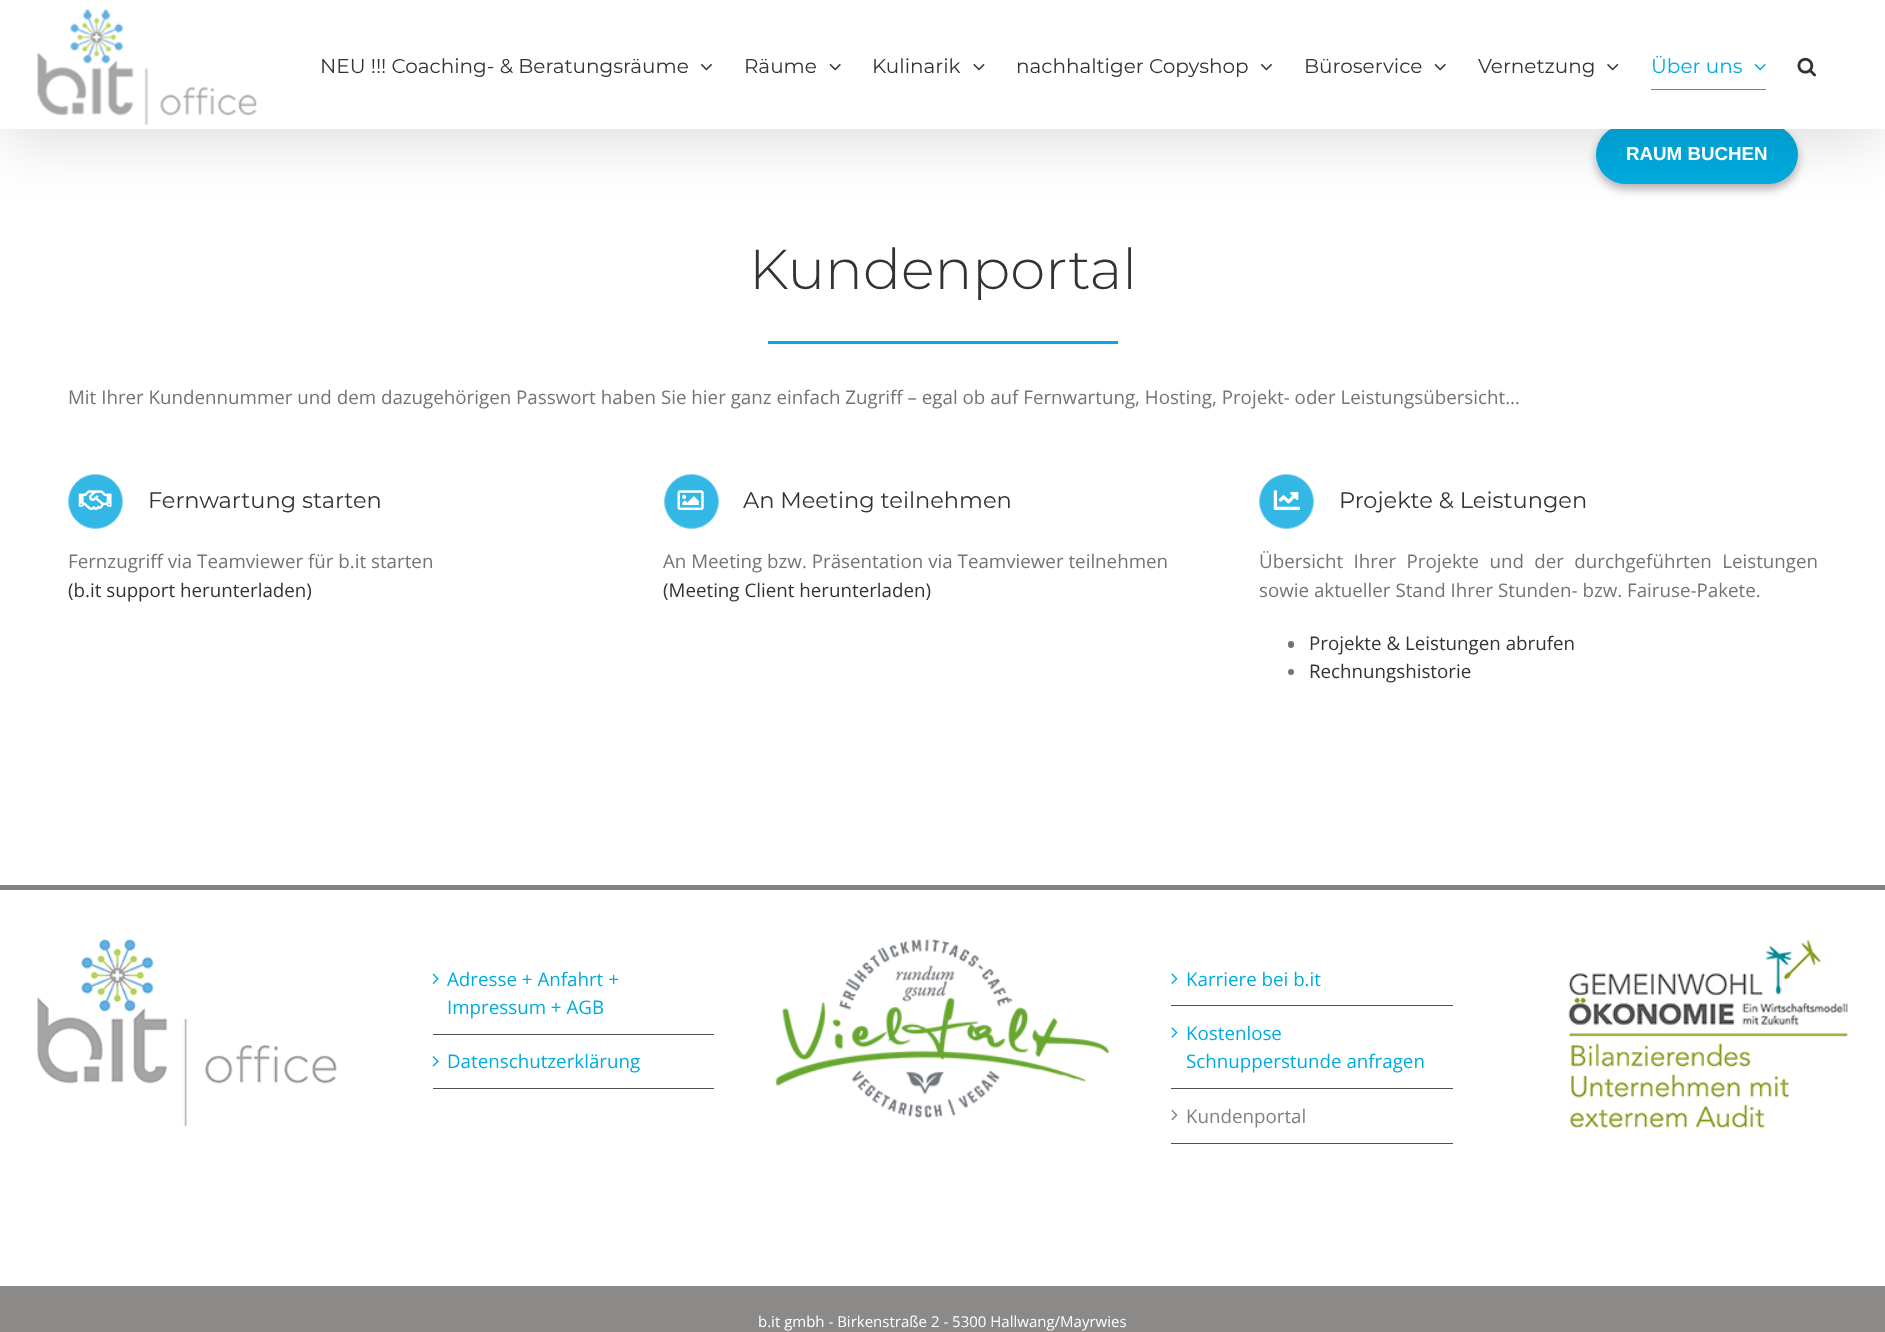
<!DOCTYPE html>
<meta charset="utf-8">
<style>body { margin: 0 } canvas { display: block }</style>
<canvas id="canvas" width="1885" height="1332"></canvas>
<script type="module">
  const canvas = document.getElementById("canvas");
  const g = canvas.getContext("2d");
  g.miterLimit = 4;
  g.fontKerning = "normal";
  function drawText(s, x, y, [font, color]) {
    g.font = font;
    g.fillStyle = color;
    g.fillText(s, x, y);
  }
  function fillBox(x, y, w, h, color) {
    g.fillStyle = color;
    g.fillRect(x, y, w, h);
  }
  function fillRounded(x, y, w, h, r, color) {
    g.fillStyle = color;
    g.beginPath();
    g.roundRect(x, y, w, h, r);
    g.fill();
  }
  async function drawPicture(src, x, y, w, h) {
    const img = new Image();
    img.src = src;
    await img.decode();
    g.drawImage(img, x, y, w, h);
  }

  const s1 = ["20px Montserrat", "#333333"];
  const s2 = ["20px Montserrat", "#00ABDF"];
  const s3 = ["bold 18.75px Liberation Sans", "#FFFFFF"];
  const s4 = ["18.75px Open Sans", "#00ABDF"];
  const s5 = ["18.75px Open Sans", "#818181"];
  const s6 = ["15px Open Sans", "#FFFFFF"];
  const s7 = ["300 56.25px Montserrat", "#333333"];
  const s8 = ["18.75px Open Sans", "#747474"];
  const s9 = ["22.5px Montserrat", "#333333"];
  const s10 = ["18.75px Open Sans", "#333333"];

  fillBox(0, 0, 1885, 1332, "#FFFFFF");
  g.fillStyle = "rgba(0, 0, 0, 0.3)";
  g.filter = "blur(5px)";
  g.beginPath();
  g.roundRect(1596, 130, 202, 59, 29.5);
  g.fill();
  g.filter = "none";
  fillRounded(1596, 125, 202, 59, 29.5, "#00ABDF");
  g.fillStyle = "rgba(0, 0, 0, 0.14)";
  g.filter = "blur(31px)";
  g.beginPath();
  g.rect(3, 6, 1880, 133);
  g.fill();
  g.filter = "none";
  fillBox(0, 0, 1885, 129, "#FFFFFF");
  await drawPicture("pic1.png", 37, 9, 220, 116);
  drawText("NEU !!! Coaching- & Beratungsräume", 320, 73, s1);
  await drawPicture("pic2.png", 700, 63, 12, 8);
  drawText("Räume", 744, 73, s1);
  await drawPicture("pic3.png", 829, 63, 12, 8);
  drawText("Kulinarik", 872, 73, s1);
  await drawPicture("pic4.png", 973, 63, 12, 8);
  drawText("nachhaltiger Copyshop", 1016, 73, s1);
  await drawPicture("pic2.png", 1260, 63, 12, 8);
  drawText("Büroservice", 1304, 73, s1);
  await drawPicture("pic3.png", 1434, 63, 12, 8);
  drawText("Vernetzung", 1478, 73, s1);
  await drawPicture("pic5.png", 1607, 63, 12, 8);
  drawText("Über uns", 1651, 73, s2);
  await drawPicture("pic6.png", 1754, 63, 12, 8);
  fillBox(1651, 89, 115, 1, "#00ABDF");
  await drawPicture("pic7.png", 1797, 57, 19, 20);
  fillBox(0, 885, 1885, 5, "#818181");
  drawText("RAUM BUCHEN", 1626, 160, s3);
  await drawPicture("pic8.png", 1568, 939, 280, 189);
  await drawPicture("pic9.png", 37, 939, 300, 187);
  fillBox(433, 1034, 281, 1, "#505152");
  await drawPicture("pic10.png", 432, 973, 7, 11);
  drawText("Adresse + Anfahrt +", 447, 986, s4);
  drawText("Impressum + AGB", 447, 1014, s4);
  fillBox(433, 1088, 281, 1, "#505152");
  await drawPicture("pic11.png", 432, 1056, 7, 11);
  drawText("Datenschutzerklärung", 447, 1068, s4);
  await drawPicture("pic12.png", 776, 939, 333, 179);
  fillBox(1171, 1005, 282, 1, "#505152");
  await drawPicture("pic13.png", 1171, 973, 7, 11);
  drawText("Karriere bei b.it", 1186, 986, s4);
  fillBox(1171, 1088, 282, 1, "#505152");
  await drawPicture("pic14.png", 1171, 1027, 7, 11);
  drawText("Kostenlose", 1186, 1040, s4);
  drawText("Schnupperstunde anfragen", 1186, 1068, s4);
  fillBox(1171, 1143, 282, 1, "#505152");
  await drawPicture("pic15.png", 1171, 1109, 7, 12);
  drawText("Kundenportal", 1186, 1123, s5);
  fillBox(0, 1286, 1885, 46, "#8C8989");
  drawText("b.it gmbh - Birkenstraße 2 - 5300 Hallwang/Mayrwies", 758, 1327, s6);
  drawText("Kundenportal", 749, 289, s7);
  fillBox(768, 341, 350, 3, "#00ABDF");
  drawText("Mit Ihrer Kundennummer und dem dazugehörigen Passwort haben Sie hier ganz einfach Zugriff – egal ob auf Fernwartung, Hosting, Projekt- oder Leistungsübersicht…", 68, 404, s8);
  g.fillStyle = "#33B7E5";
  g.beginPath();
  g.arc(95.5, 501.5, 27, 0, Math.PI * 2);
  g.fill();
  g.strokeStyle = "#84D1F4";
  g.stroke();
  await drawPicture("pic16.png", 78, 490, 34, 20);
  drawText("Fernwartung starten", 148, 508, s9);
  drawText("Fernzugriff via Teamviewer für b.it starten", 68, 568, s8);
  drawText("(b.it support herunterladen)", 68, 597, s10);
  g.fillStyle = "#33B7E5";
  g.beginPath();
  g.arc(691.5, 501.5, 27, 0, Math.PI * 2);
  g.fill();
  g.stroke();
  await drawPicture("pic17.png", 677, 490, 27, 20);
  drawText("An Meeting teilnehmen", 743, 508, s9);
  drawText("An Meeting bzw. Präsentation via Teamviewer teilnehmen", 663, 568, s8);
  drawText("(Meeting Client herunterladen)", 663, 597, s10);
  g.fillStyle = "#33B7E5";
  g.beginPath();
  g.arc(1286.5, 501.5, 27, 0, Math.PI * 2);
  g.fill();
  g.stroke();
  await drawPicture("pic18.png", 1273, 490, 27, 20);
  drawText("Projekte & Leistungen", 1339, 508, s9);
  g.wordSpacing = "5.5px";
  drawText("Übersicht Ihrer Projekte und der durchgeführten Leistungen", 1259, 568, s8);
  g.wordSpacing = "0px";
  drawText("sowie aktueller Stand Ihrer Stunden- bzw. Fairuse-Pakete.", 1259, 597, s8);
  fillRounded(1288, 641, 6, 7, 3, "#747474");
  drawText("Projekte & Leistungen abrufen", 1309, 650, s10);
  g.fillStyle = "#747474";
  g.beginPath();
  g.arc(1291, 672, 3, 0, Math.PI * 2);
  g.fill();
  drawText("Rechnungshistorie", 1309, 678, s10);
</script>
